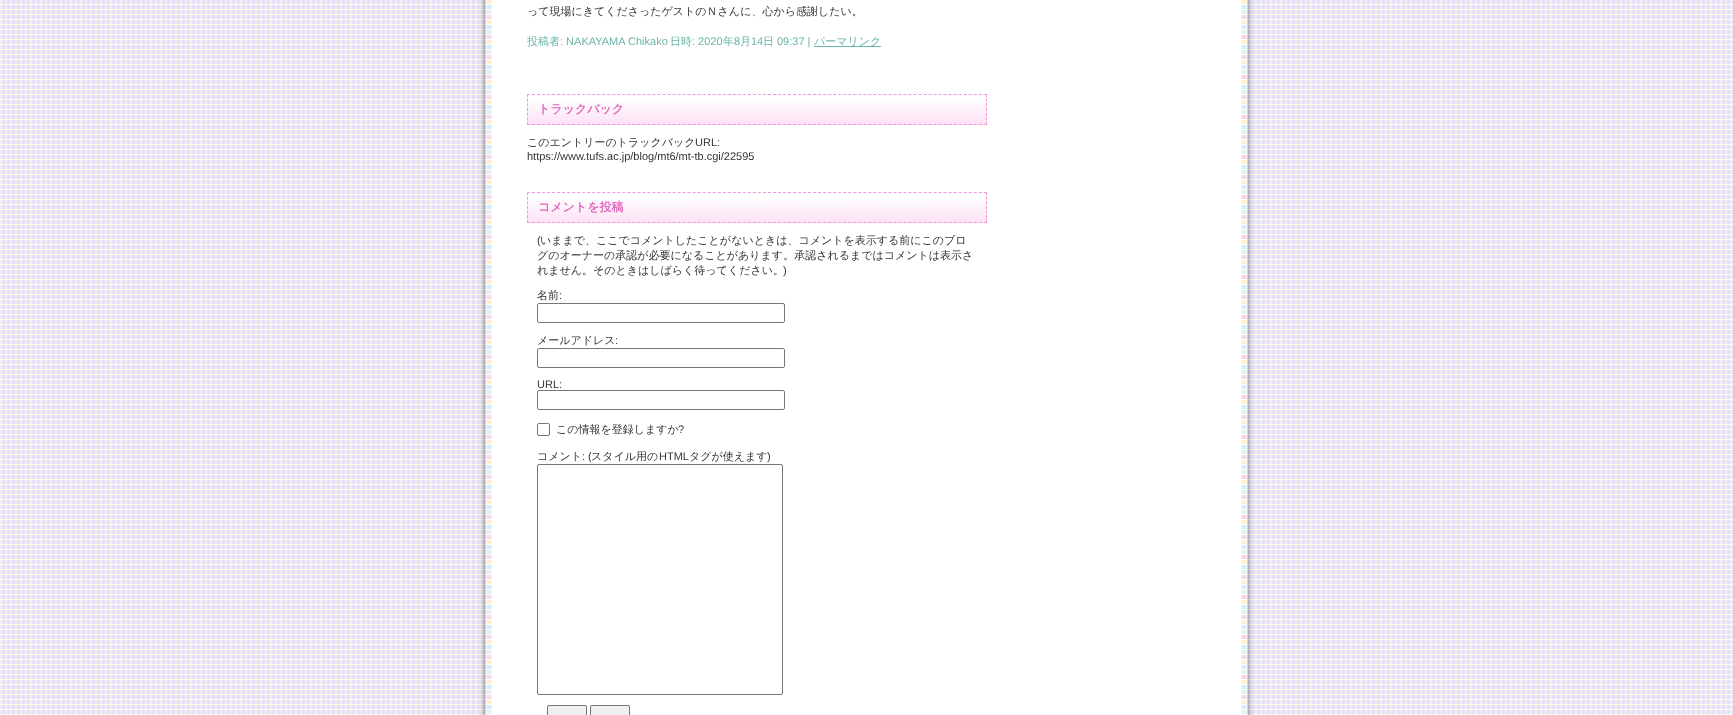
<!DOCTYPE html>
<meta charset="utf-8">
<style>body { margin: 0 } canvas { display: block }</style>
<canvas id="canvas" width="1733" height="715"></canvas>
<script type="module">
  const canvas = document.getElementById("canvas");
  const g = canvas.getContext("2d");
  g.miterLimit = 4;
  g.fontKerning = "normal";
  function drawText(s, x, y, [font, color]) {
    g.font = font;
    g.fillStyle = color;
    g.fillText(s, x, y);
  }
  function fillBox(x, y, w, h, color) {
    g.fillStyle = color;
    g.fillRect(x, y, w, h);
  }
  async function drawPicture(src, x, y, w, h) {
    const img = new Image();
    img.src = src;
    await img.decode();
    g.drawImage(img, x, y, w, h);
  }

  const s1 = ["500 11px WenQuanYi Zen Hei", "#333333"];
  const s2 = ["500 11px WenQuanYi Zen Hei", "#6AB4A9"];
  const s3 = ["11px Liberation Sans", "#6AB4A9"];
  const s4 = ["bold 12px WenQuanYi Zen Hei", "#DE66BC"];
  const s5 = ["11px Liberation Sans", "#333333"];

  fillBox(0, 0, 1733, 715, "#FFFFFF");
  await drawPicture("pic1.png", 0, 0, 1733, 715);
  drawText("って現場にきてくださったゲストのＮさんに、心から感謝したい。", 527, 15, s1);
  g.save();
  g.beginPath();
  g.rect(527, 0, 460, 74);
  g.clip();
  drawText("投稿者", 527, 45, s2);
  g.restore();
  drawText(": NAKAYAMA Chikako", 560, 45, s3);
  drawText("日時", 670, 45, s2);
  drawText(": 2020", 692, 45, s3);
  drawText("年", 723, 45, s2);
  drawText("8", 734, 45, s3);
  drawText("月", 740, 45, s2);
  drawText("14", 751, 45, s3);
  drawText("日", 763, 45, s2);
  drawText("09:37 |", 777, 45, s3);
  fillBox(814, 46, 67, 1, "#6AB4A9");
  drawText("パーマリンク", 814, 45, s2);
  await drawPicture("pic2.png", 527, 102, 460, 23);
  g.beginPath();
  g.moveTo(527, 94.5);
  g.lineTo(987, 94.5);
  g.strokeStyle = "#F595DA";
  g.setLineDash([3, 2.02]);
  g.stroke();
  g.beginPath();
  g.moveTo(986.5, 94);
  g.lineTo(986.5, 125);
  g.setLineDash([3, 1.67]);
  g.stroke();
  g.beginPath();
  g.moveTo(527, 124.5);
  g.lineTo(987, 124.5);
  g.setLineDash([3, 2.02]);
  g.stroke();
  g.beginPath();
  g.moveTo(527.5, 94);
  g.lineTo(527.5, 125);
  g.setLineDash([3, 1.67]);
  g.stroke();
  drawText("トラックバック", 538, 113, s4);
  drawText("このエントリーのトラックバック", 527, 146, s1);
  drawText("URL:", 695, 146, s5);
  drawText("https://www.tufs.ac.jp/blog/mt6/mt-tb.cgi/22595", 527, 160, s5);
  await drawPicture("pic2.png", 527, 200, 460, 23);
  g.beginPath();
  g.moveTo(527, 192.5);
  g.lineTo(987, 192.5);
  g.setLineDash([3, 2.02]);
  g.stroke();
  g.beginPath();
  g.moveTo(986.5, 192);
  g.lineTo(986.5, 223);
  g.setLineDash([3, 1.67]);
  g.stroke();
  g.beginPath();
  g.moveTo(527, 222.5);
  g.lineTo(987, 222.5);
  g.setLineDash([3, 2.02]);
  g.stroke();
  g.beginPath();
  g.moveTo(527.5, 192);
  g.lineTo(527.5, 223);
  g.setLineDash([3, 1.67]);
  g.stroke();
  drawText("コメントを投稿", 538, 211, s4);
  drawText("(", 537, 244, s5);
  drawText("いままで、ここでコメントしたことがないときは、コメントを表示する前にこのブロ", 540, 244, s1);
  drawText("グのオーナーの承認が必要になることがあります。承認されるまではコメントは表示さ", 537, 259, s1);
  drawText("れません。そのときはしばらく待ってください。", 537, 274, s1);
  drawText(")", 783, 274, s5);
  drawText("名前", 537, 299, s1);
  drawText(":", 559, 299, s5);
  g.beginPath();
  g.roundRect(537.5, 303.5, 247, 19, 1.5);
  g.strokeStyle = "#767676";
  g.setLineDash([]);
  g.stroke();
  drawText("メールアドレス", 537, 344, s1);
  drawText(":", 615, 344, s5);
  g.beginPath();
  g.roundRect(537.5, 348.5, 247, 19, 1.5);
  g.stroke();
  drawText("URL:", 537, 388, s5);
  g.beginPath();
  g.roundRect(537.5, 390.5, 247, 19, 1.5);
  g.stroke();
  g.beginPath();
  g.roundRect(537.5, 423.5, 12, 12, 1.5);
  g.stroke();
  drawText("この情報を登録しますか", 556, 433, s1);
  drawText("?", 678, 433, s5);
  drawText("コメント", 537, 460, s1);
  drawText(": (", 582, 460, s5);
  drawText("スタイル用の", 591, 460, s1);
  drawText("HTML", 659, 460, s5);
  drawText("タグが使えます", 689, 460, s1);
  drawText(")", 767, 460, s5);
  g.beginPath();
  g.roundRect(537.5, 464.5, 245, 230, 1.5);
  g.stroke();
  g.fillStyle = "#EFEFEF";
  g.beginPath();
  g.roundRect(547.5, 705.5, 39, 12, 1.5);
  g.fill();
  g.stroke();
  g.beginPath();
  g.roundRect(590.5, 705.5, 39, 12, 1.5);
  g.fill();
  g.stroke();
</script>
